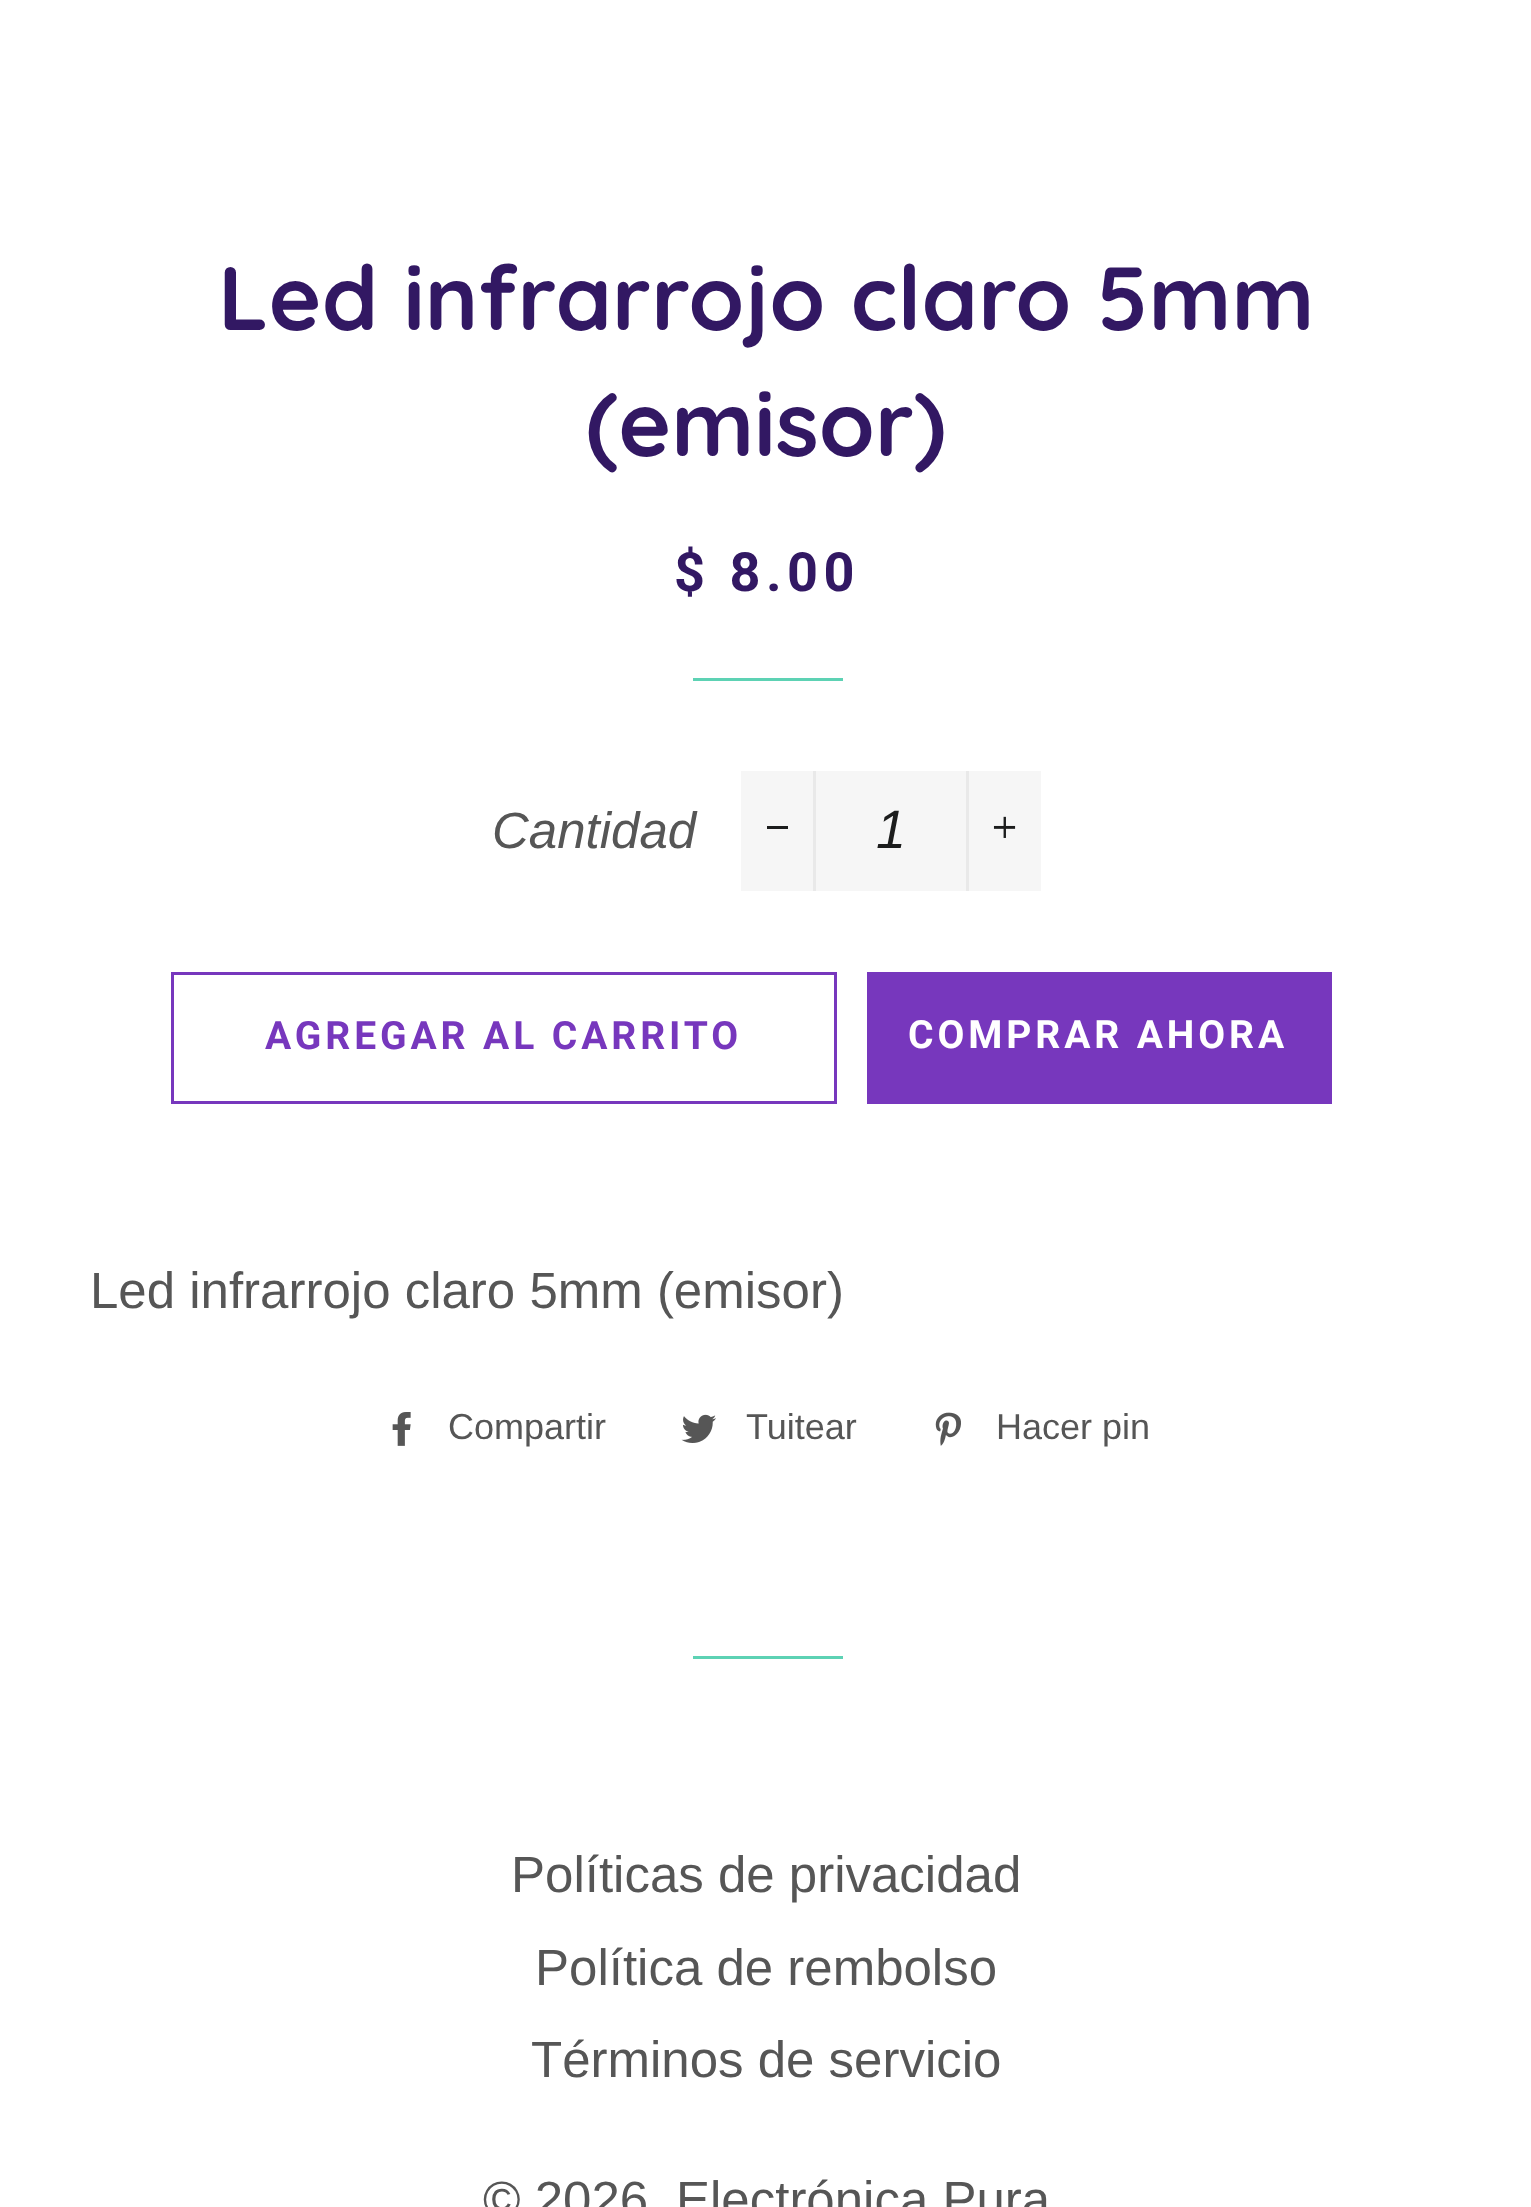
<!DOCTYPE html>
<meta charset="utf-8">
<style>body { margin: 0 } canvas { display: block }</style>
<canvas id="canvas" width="1531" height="2207"></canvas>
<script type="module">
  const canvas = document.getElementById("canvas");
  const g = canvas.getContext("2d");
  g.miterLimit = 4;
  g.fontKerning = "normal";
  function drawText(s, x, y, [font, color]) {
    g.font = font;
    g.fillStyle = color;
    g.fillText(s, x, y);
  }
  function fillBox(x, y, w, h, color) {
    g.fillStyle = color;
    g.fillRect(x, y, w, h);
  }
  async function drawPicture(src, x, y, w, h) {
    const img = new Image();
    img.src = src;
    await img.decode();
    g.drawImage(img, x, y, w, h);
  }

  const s1 = ["bold 90px Quicksand", "#321863"];
  const s2 = ["bold 54px Roboto", "#321863"];
  const s3 = ["italic 51px Liberation Sans", "#565656"];
  const s4 = ["italic 54px Liberation Sans", "#1C1D1D"];
  const s5 = ["bold 39px Roboto", "#7737BD"];
  const s6 = ["bold 39px Roboto", "#FFFFFF"];
  const s7 = ["51px Liberation Sans", "#565656"];
  const s8 = ["36px Liberation Sans", "#565656"];

  fillBox(0, 0, 1531, 2207, "#FFFFFF");
  drawText("Led infrarrojo claro 5mm", 218, 330, s1);
  drawText("(emisor)", 586, 456, s1);
  g.letterSpacing = "5.5px";
  drawText("$ 8.00", 674, 591, s2);
  fillBox(693, 678, 150, 3, "#5DD2B4");
  g.letterSpacing = "0px";
  drawText("Cantidad", 492, 848, s3);
  fillBox(741, 771, 300, 120, "#F6F6F6");
  fillBox(813, 771, 3, 120, "#E9E9E9");
  fillBox(767, 826, 21, 3, "#1C1D1D");
  drawText("1", 876, 848, s4);
  fillBox(966, 771, 3, 120, "#E9E9E9");
  await drawPicture("pic1.png", 993, 816, 23, 22);
  g.strokeStyle = "#7737BD";
  g.lineWidth = 3;
  g.strokeRect(172.5, 973.5, 663, 129);
  g.letterSpacing = "3.9px";
  drawText("AGREGAR AL CARRITO", 265, 1049, s5);
  fillBox(867, 972, 465, 132, "#7737BD");
  drawText("COMPRAR AHORA", 908, 1048, s6);
  g.letterSpacing = "0px";
  drawText("Led infrarrojo claro 5mm (emisor)", 90, 1308, s7);
  await drawPicture("pic2.png", 392, 1412, 19, 34);
  drawText("Compartir", 448, 1439, s8);
  await drawPicture("pic3.png", 681, 1414, 35, 29);
  drawText("Tuitear", 746, 1439, s8);
  await drawPicture("pic4.png", 935, 1412, 26, 34);
  drawText("Hacer pin", 996, 1439, s8);
  fillBox(693, 1656, 150, 3, "#5DD2B4");
  drawText("Políticas de privacidad", 511, 1892, s7);
  drawText("Política de rembolso", 535, 1985, s7);
  drawText("Términos de servicio", 531, 2077, s7);
  drawText("© 2026", 483, 2217, s7);
  drawText("Electrónica Pura", 676, 2217, s7);
</script>
